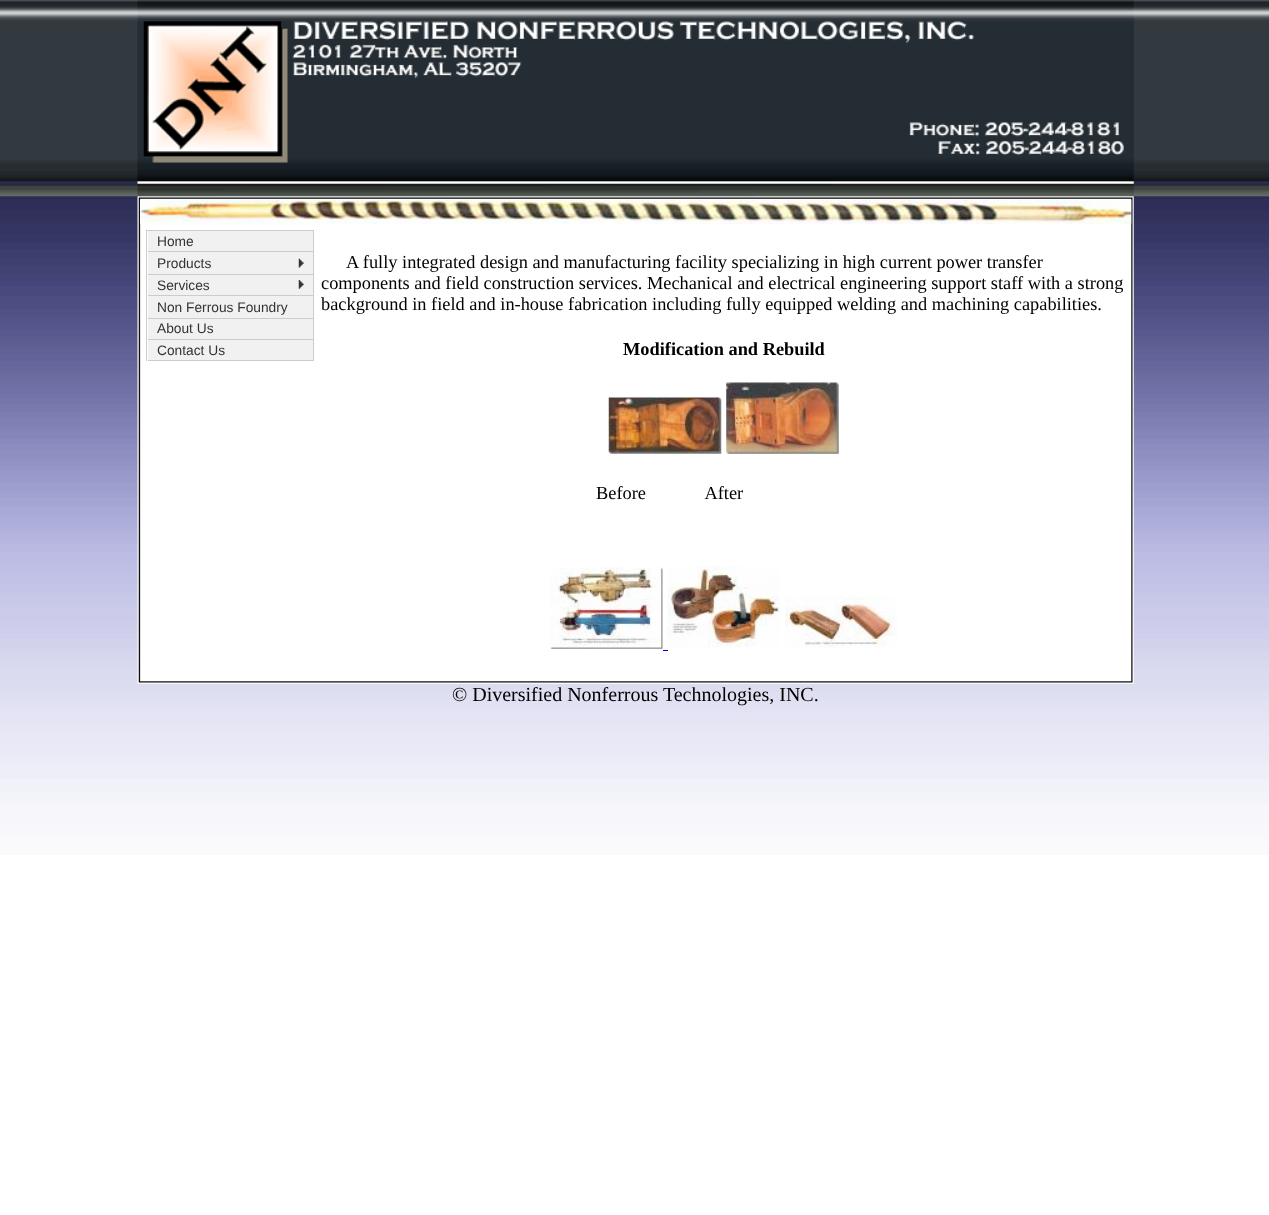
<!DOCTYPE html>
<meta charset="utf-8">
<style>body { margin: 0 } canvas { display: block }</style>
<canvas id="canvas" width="1269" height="1215"></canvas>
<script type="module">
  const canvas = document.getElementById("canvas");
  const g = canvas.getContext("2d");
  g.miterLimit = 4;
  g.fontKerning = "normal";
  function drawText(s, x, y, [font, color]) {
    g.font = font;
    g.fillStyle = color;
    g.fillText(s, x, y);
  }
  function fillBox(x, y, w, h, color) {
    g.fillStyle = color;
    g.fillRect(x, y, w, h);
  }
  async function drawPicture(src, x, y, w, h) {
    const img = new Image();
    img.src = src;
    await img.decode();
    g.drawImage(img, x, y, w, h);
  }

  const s1 = ["13.75px Liberation Sans", "#333333"];
  const s2 = ["18.35px Liberation Serif", "#000000"];
  const s3 = ["bold 18.35px Liberation Serif", "#000000"];
  const s4 = ["20px Liberation Serif", "#000000"];

  fillBox(0, 0, 1269, 1215, "#FFFFFF");
  await drawPicture("pic1.png", 0, 0, 1269, 855);
  await drawPicture("pic2.png", 137, 0, 997, 200);
  await drawPicture("pic3.png", 137, 200, 997, 480);
  await drawPicture("pic4.png", 140, 200, 992, 24);
  fillBox(146, 230, 168, 1, "#CCCCCC");
  fillBox(313, 230, 1, 131, "#CCCCCC");
  fillBox(146, 230, 1, 131, "#CCCCCC");
  fillBox(148, 231, 165, 43, "#F1F1F1");
  fillBox(148, 251, 165, 1, "#CCCCCC");
  drawText("Home", 157, 246, s1);
  await drawPicture("pic5.png", 298, 258, 6, 10);
  fillBox(148, 274, 165, 1, "#CCCCCC");
  drawText("Products", 157, 268, s1);
  fillBox(148, 275, 165, 20, "#F1F1F1");
  await drawPicture("pic6.png", 298, 280, 6, 9);
  fillBox(148, 295, 165, 1, "#CCCCCC");
  drawText("Services", 157, 290, s1);
  fillBox(148, 296, 165, 22, "#F1F1F1");
  fillBox(148, 318, 165, 1, "#CCCCCC");
  drawText("Non Ferrous Foundry", 157, 312, s1);
  fillBox(148, 319, 165, 20, "#F1F1F1");
  fillBox(148, 339, 165, 1, "#CCCCCC");
  drawText("About Us", 157, 333, s1);
  fillBox(148, 340, 165, 20, "#F1F1F1");
  fillBox(148, 360, 165, 1, "#CCCCCC");
  drawText("Contact Us", 157, 355, s1);
  drawText("A fully integrated design and manufacturing facility specializing in high current power transfer", 346, 268, s2);
  drawText("components and field construction services. Mechanical and electrical engineering support staff with a strong", 321, 289, s2);
  drawText("background in field and in-house fabrication including fully equipped welding and machining capabilities.", 321, 310, s2);
  drawText("Modification and Rebuild", 623, 355, s3);
  await drawPicture("pic7.png", 608, 397, 114, 57);
  await drawPicture("pic8.png", 726, 382, 113, 72);
  drawText("Before             After", 596, 499, s2);
  await drawPicture("pic9.png", 550, 567, 113, 82);
  await drawPicture("pic10.png", 667, 566, 113, 82);
  await drawPicture("pic11.png", 785, 596, 113, 53);
  fillBox(663, 650, 5, 1, "#0000EE");
  await drawPicture("pic12.png", 137, 680, 997, 4);
  drawText("© Diversified Nonferrous Technologies, INC.", 452, 701, s4);
</script>
